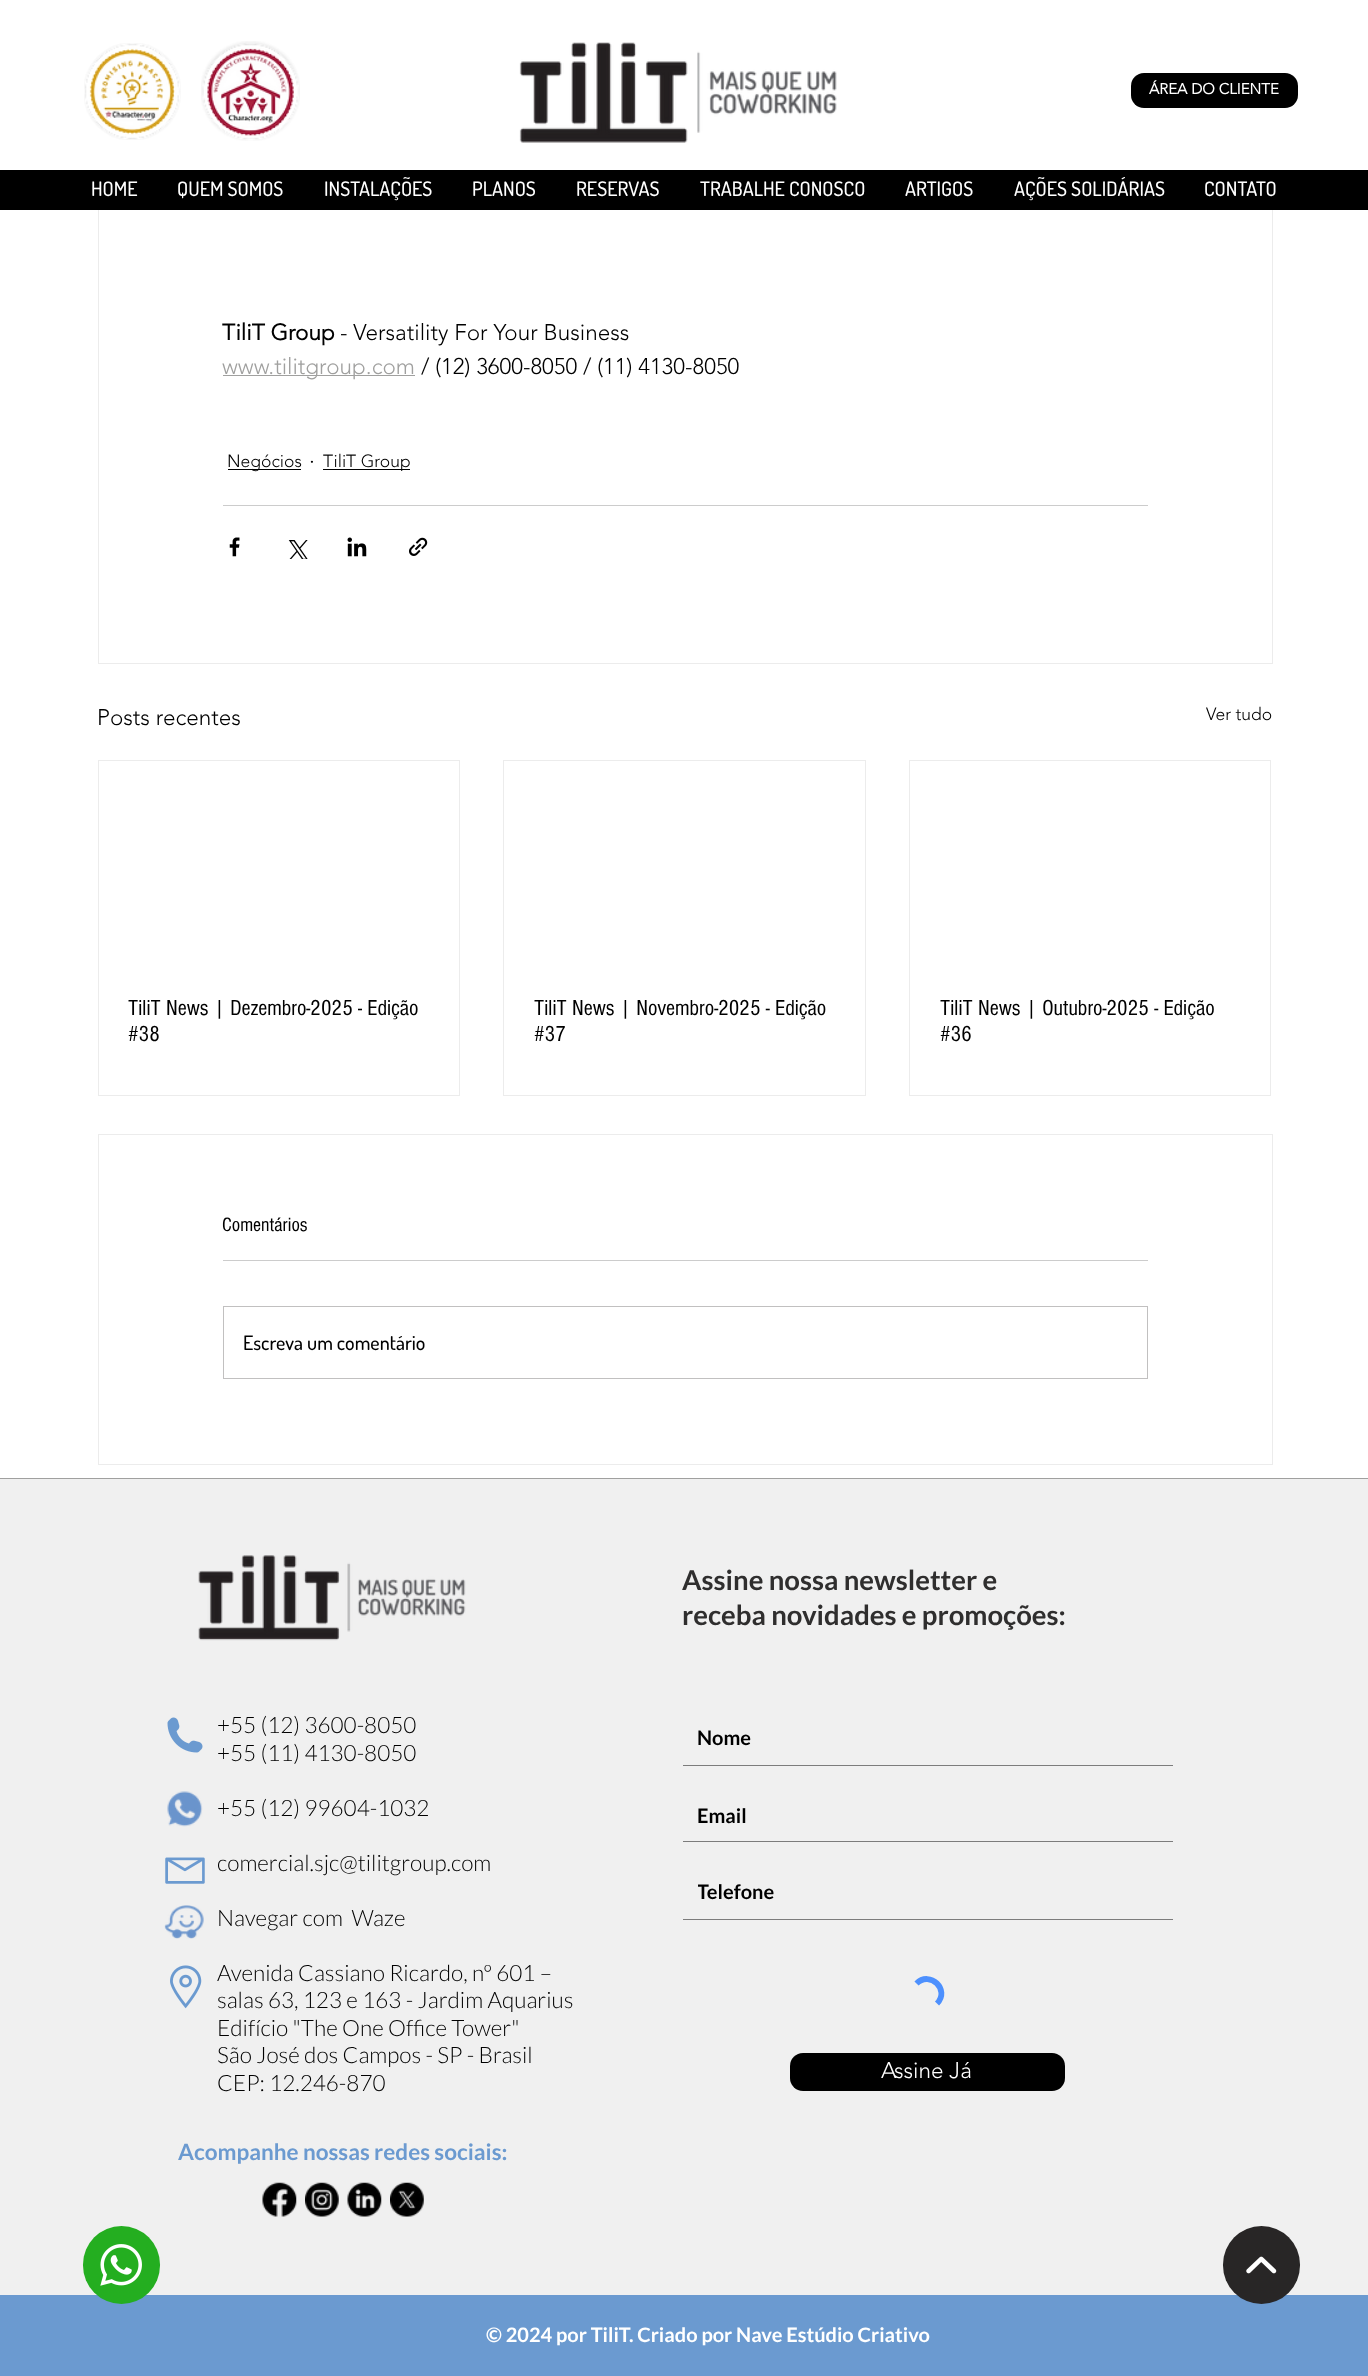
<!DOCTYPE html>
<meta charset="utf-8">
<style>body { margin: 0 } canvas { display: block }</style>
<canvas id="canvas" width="1368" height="2376"></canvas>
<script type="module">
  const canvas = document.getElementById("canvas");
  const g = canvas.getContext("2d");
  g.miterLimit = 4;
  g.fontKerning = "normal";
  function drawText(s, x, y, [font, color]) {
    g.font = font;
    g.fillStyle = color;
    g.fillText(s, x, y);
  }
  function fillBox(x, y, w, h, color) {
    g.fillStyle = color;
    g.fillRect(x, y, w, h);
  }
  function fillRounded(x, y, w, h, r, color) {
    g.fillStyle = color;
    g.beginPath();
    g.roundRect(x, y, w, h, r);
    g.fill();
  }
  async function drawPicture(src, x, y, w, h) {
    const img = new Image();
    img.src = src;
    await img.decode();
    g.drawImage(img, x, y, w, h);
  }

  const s1 = ["bold 15px 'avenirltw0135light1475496'", "#FFFFFF"];
  const s2 = ["500 20px Dosis", "#FFFFFF"];
  const s3 = ["bold 22.5px 'avenirltw0135light1475496'", "#000000"];
  const s4 = ["300 22.5px 'avenirltw0135light1475496'", "#000000"];
  const s5 = ["300 22.5px 'avenirltw0135light1475496'", "#A0A09F"];
  const s6 = ["300 17.5px 'avenirltw0135light1475496'", "#000000"];
  const s7 = ["22.5px 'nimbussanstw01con'", "#000000"];
  const s8 = ["20px 'nimbussanstw01con'", "#000000"];
  const s9 = ["500 20px Dosis", "#000000"];
  const s10 = ["bold 27.5px Lato", "#2F2E2E"];
  const s11 = ["300 22.5px Lato", "#000000"];
  const s12 = ["bold 22.5px Lato", "#6B9AD0"];
  const s13 = ["bold 20px Lato", "#000000"];
  const s14 = ["300 22.5px 'avenirltw0135light1475496'", "#FFFFFF"];
  const s15 = ["bold 20px Lato", "#FFFFFF"];

  fillBox(0, 0, 1368, 2376, "#FFFFFF");
  g.strokeStyle = "#ECECEC";
  g.strokeRect(98.5, -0.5, 1174, 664);
  fillBox(98, 0, 1175, 170, "#FFFFFF");
  await drawPicture("pic1.png", 84, 43, 97, 97);
  await drawPicture("pic2.png", 201, 41, 99, 100);
  await drawPicture("pic3.png", 519, 42, 318, 101);
  fillRounded(1131, 73, 167, 35, 13, "#000000");
  drawText("ÁREA DO CLIENTE", 1149, 94, s1);
  fillBox(0, 170, 1368, 40, "#000000");
  drawText("HOME", 91, 196, s2);
  drawText("QUEM SOMOS", 177, 196, s2);
  drawText("INSTALAÇÕES", 324, 196, s2);
  drawText("PLANOS", 472, 196, s2);
  drawText("RESERVAS", 576, 196, s2);
  drawText("TRABALHE CONOSCO", 700, 196, s2);
  drawText("ARTIGOS", 905, 196, s2);
  drawText("AÇÕES SOLIDÁRIAS", 1014, 196, s2);
  drawText("CONTATO", 1204, 196, s2);
  drawText("TiliT Group", 222, 340, s3);
  drawText("- Versatility For Your Business", 340, 340, s4);
  fillBox(223, 375, 192, 1, "#A0A09F");
  drawText("www.tilitgroup.com", 222, 374, s5);
  drawText("/ (12) 3600-8050 / (11) 4130-8050", 421, 374, s4);
  fillBox(228, 469, 73, 1, "#000000");
  drawText("Negócios", 227, 467, s6);
  drawText("·", 309, 469, s4);
  fillBox(323, 469, 87, 1, "#000000");
  drawText("TiliT Group", 323, 467, s6);
  fillBox(223, 505, 925, 1, "#CCCCCC");
  await drawPicture("pic4.png", 229, 537, 11, 20);
  await drawPicture("pic5.png", 288, 540, 20, 19);
  await drawPicture("pic6.png", 347, 537, 20, 20);
  await drawPicture("pic7.png", 409, 537, 19, 19);
  drawText("Posts recentes", 97, 725, s4);
  drawText("Ver tudo", 1206, 720, s6);
  g.strokeRect(98.5, 760.5, 361, 335);
  drawText("TiliT News | Dezembro-2025 - Edição", 128, 1015, s7);
  drawText("#38", 128, 1041, s7);
  g.strokeRect(503.5, 760.5, 362, 335);
  drawText("TiliT News | Novembro-2025 - Edição", 534, 1015, s7);
  drawText("#37", 534, 1041, s7);
  g.strokeRect(909.5, 760.5, 361, 335);
  drawText("TiliT News | Outubro-2025 - Edição", 940, 1015, s7);
  drawText("#36", 940, 1041, s7);
  g.strokeRect(98.5, 1134.5, 1174, 330);
  drawText("Comentários", 222, 1231, s8);
  fillBox(223, 1260, 925, 1, "#CCCCCC");
  g.strokeStyle = "#C1C0C0";
  g.strokeRect(223.5, 1306.5, 924, 72);
  drawText("Escreva um comentário", 243, 1350, s9);
  fillBox(0, 1479, 1368, 816, "#F0F0F0");
  fillBox(0, 2295, 1368, 81, "#6B9AD0");
  fillRounded(83, 2226, 77, 78, 38.5, "#24AE20");
  await drawPicture("pic8.png", 100, 2244, 42, 42);
  fillBox(0, 1478, 1368, 1, "#A0A09F");
  await drawPicture("pic9.png", 198, 1555, 268, 86);
  drawText("Assine nossa newsletter e", 682, 1590, s10);
  drawText("receba novidades e promoções:", 682, 1625, s10);
  await drawPicture("pic10.png", 167, 1717, 36, 36);
  drawText("+55 (12) 3600-8050", 217, 1733, s11);
  drawText("+55 (11) 4130-8050", 217, 1761, s11);
  drawText("+55 (12) 99604-1032", 217, 1816, s11);
  drawText("comercial.sjc@tilitgroup.com", 217, 1871, s11);
  drawText("Navegar com  Waze", 217, 1926, s11);
  drawText("Avenida Cassiano Ricardo, nº 601 –", 217, 1981, s11);
  drawText("salas 63, 123 e 163 - Jardim Aquarius", 217, 2008, s11);
  drawText("Edifício \"The One Office Tower\"", 217, 2036, s11);
  drawText("São José dos Campos - SP - Brasil", 217, 2063, s11);
  drawText("CEP: 12.246-870", 217, 2091, s11);
  await drawPicture("pic11.png", 167, 1791, 36, 36);
  await drawPicture("pic12.png", 165, 1857, 40, 27);
  await drawPicture("pic13.png", 164, 1905, 40, 34);
  await drawPicture("pic14.png", 170, 1965, 32, 44);
  drawText("Acompanhe nossas redes sociais:", 178, 2160, s12);
  await drawPicture("pic15.png", 262, 2182, 35, 35);
  await drawPicture("pic16.png", 305, 2182, 34, 35);
  await drawPicture("pic17.png", 347, 2182, 35, 35);
  await drawPicture("pic18.png", 390, 2182, 34, 35);
  fillBox(683, 1765, 490, 1, "#7C7C7C");
  drawText("Nome", 697, 1745, s13);
  fillBox(683, 1841, 490, 1, "#7C7C7C");
  drawText("Email", 697, 1823, s13);
  fillBox(683, 1919, 490, 1, "#7C7C7C");
  g.save();
  g.beginPath();
  g.rect(698, 1879, 471, 24);
  g.clip();
  drawText("Telefone", 697, 1899, s13);
  g.restore();
  g.beginPath();
  g.moveTo(916.5, 1983.5);
  g.bezierCurveTo(930, 1970, 950.5, 1990, 937, 2003.5);
  g.strokeStyle = "#4D90FE";
  g.lineWidth = 5.8;
  g.stroke();
  fillRounded(790, 2053, 275, 38, 13, "#000000");
  drawText("Assine Já", 881, 2078, s14);
  drawText("© 2024 por TiliT. Criado por Nave Estúdio Criativo", 486, 2342, s15);
  fillRounded(1223, 2226, 77, 78, 38.5, "#282626");
  await drawPicture("pic19.png", 1246, 2256, 31, 18);
</script>
